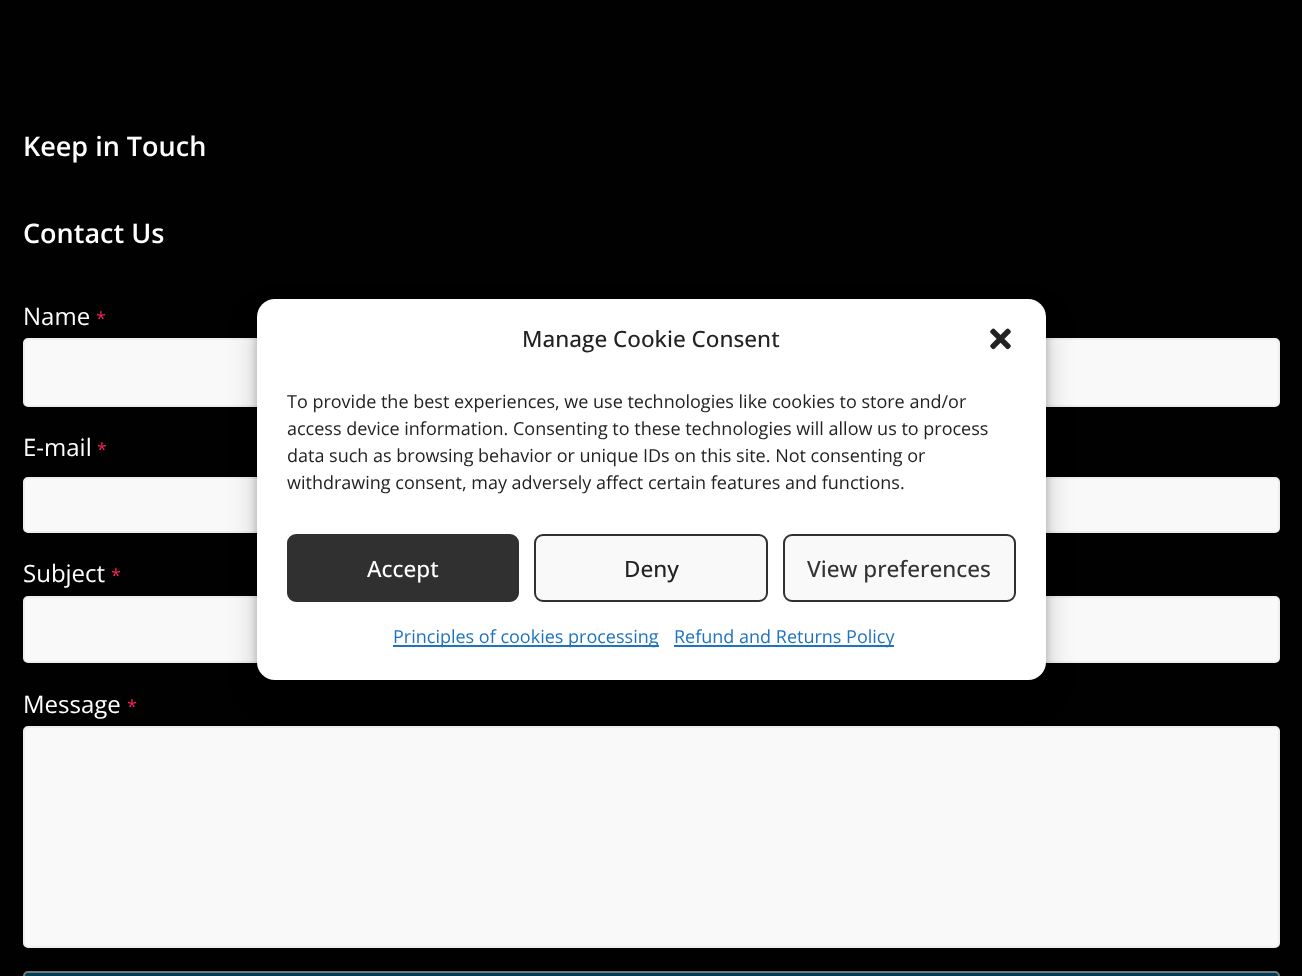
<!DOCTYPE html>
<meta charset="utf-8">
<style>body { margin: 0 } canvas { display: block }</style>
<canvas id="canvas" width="1302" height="976"></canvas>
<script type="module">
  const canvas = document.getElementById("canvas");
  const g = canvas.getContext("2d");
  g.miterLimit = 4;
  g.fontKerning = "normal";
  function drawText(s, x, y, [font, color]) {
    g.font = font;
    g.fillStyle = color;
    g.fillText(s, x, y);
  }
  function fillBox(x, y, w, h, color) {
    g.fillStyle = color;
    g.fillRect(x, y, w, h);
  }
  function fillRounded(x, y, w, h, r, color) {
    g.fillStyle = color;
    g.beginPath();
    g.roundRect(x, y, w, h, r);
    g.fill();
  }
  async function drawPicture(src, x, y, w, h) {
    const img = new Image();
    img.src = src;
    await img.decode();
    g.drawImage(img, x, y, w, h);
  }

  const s1 = ["600 27px Open Sans", "#FFFFFF"];
  const s2 = ["24px Open Sans", "#FFFFFF"];
  const s3 = ["18px Open Sans", "#F62459"];
  const s4 = ["500 22.5px Open Sans", "#222222"];
  const s5 = ["18px Open Sans", "#222222"];
  const s6 = ["500 22.5px Open Sans", "#FFFFFF"];
  const s7 = ["500 22.5px Open Sans", "#333333"];
  const s8 = ["18px Open Sans", "#1E73BE"];

  fillBox(0, 0, 1302, 976, "#010101");
  drawText("Keep in Touch", 23, 156, s1);
  drawText("Contact Us", 23, 243, s1);
  drawText("Name", 23, 325, s2);
  drawText("*", 96, 325, s3);
  g.fillStyle = "#F9F9F9";
  g.beginPath();
  g.roundRect(24, 339, 1255, 67, 4);
  g.fill();
  g.strokeStyle = "#EEEEEE";
  g.lineWidth = 2;
  g.stroke();
  drawText("E-mail", 23, 456, s2);
  drawText("*", 97, 456, s3);
  g.fillStyle = "#F9F9F9";
  g.beginPath();
  g.roundRect(24, 478, 1255, 54, 4);
  g.fill();
  g.stroke();
  drawText("Subject", 23, 582, s2);
  drawText("*", 111, 582, s3);
  g.fillStyle = "#F9F9F9";
  g.beginPath();
  g.roundRect(24, 597, 1255, 65, 4);
  g.fill();
  g.stroke();
  drawText("Message", 23, 713, s2);
  drawText("*", 127, 713, s3);
  g.fillStyle = "#F9F9F9";
  g.beginPath();
  g.roundRect(24, 727, 1255, 220, 4);
  g.fill();
  g.stroke();
  g.fillStyle = "#013C57";
  g.beginPath();
  g.roundRect(24, 972, 1255, 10, 4);
  g.fill();
  g.strokeStyle = "#787878";
  g.stroke();
  g.fillStyle = "rgba(0, 0, 0, 0.23)";
  g.filter = "blur(4.5px)";
  g.beginPath();
  g.roundRect(257, 308, 789, 381, 18);
  g.fill();
  g.filter = "none";
  g.fillStyle = "rgba(0, 0, 0, 0.19)";
  g.filter = "blur(15px)";
  g.beginPath();
  g.roundRect(257, 314, 789, 381, 18);
  g.fill();
  g.filter = "none";
  fillRounded(257, 299, 789, 381, 18, "#FFFFFF");
  drawText("Manage Cookie Consent", 522, 347, s4);
  await drawPicture("pic1.png", 990, 328, 21, 22);
  drawText("To provide the best experiences, we use technologies like cookies to store and/or", 287, 408, s5);
  drawText("access device information. Consenting to these technologies will allow us to process", 287, 435, s5);
  drawText("data such as browsing behavior or unique IDs on this site. Not consenting or", 287, 462, s5);
  drawText("withdrawing consent, may adversely affect certain features and functions.", 287, 489, s5);
  g.fillStyle = "#303030";
  g.beginPath();
  g.roundRect(288, 535, 230, 66, 8);
  g.fill();
  g.strokeStyle = "#303030";
  g.stroke();
  drawText("Accept", 367, 577, s6);
  g.fillStyle = "#F9F9F9";
  g.beginPath();
  g.roundRect(535, 535, 232, 66, 8);
  g.fill();
  g.stroke();
  drawText("Deny", 624, 577, s4);
  g.fillStyle = "#F9F9F9";
  g.beginPath();
  g.roundRect(784, 535, 231, 66, 8);
  g.fill();
  g.stroke();
  drawText("View preferences", 807, 577, s7);
  fillBox(393, 645, 266, 2, "#1E73BE");
  drawText("Principles of cookies processing", 393, 643, s8);
  fillBox(674, 645, 220, 2, "#1E73BE");
  drawText("Refund and Returns Policy", 674, 643, s8);
</script>
